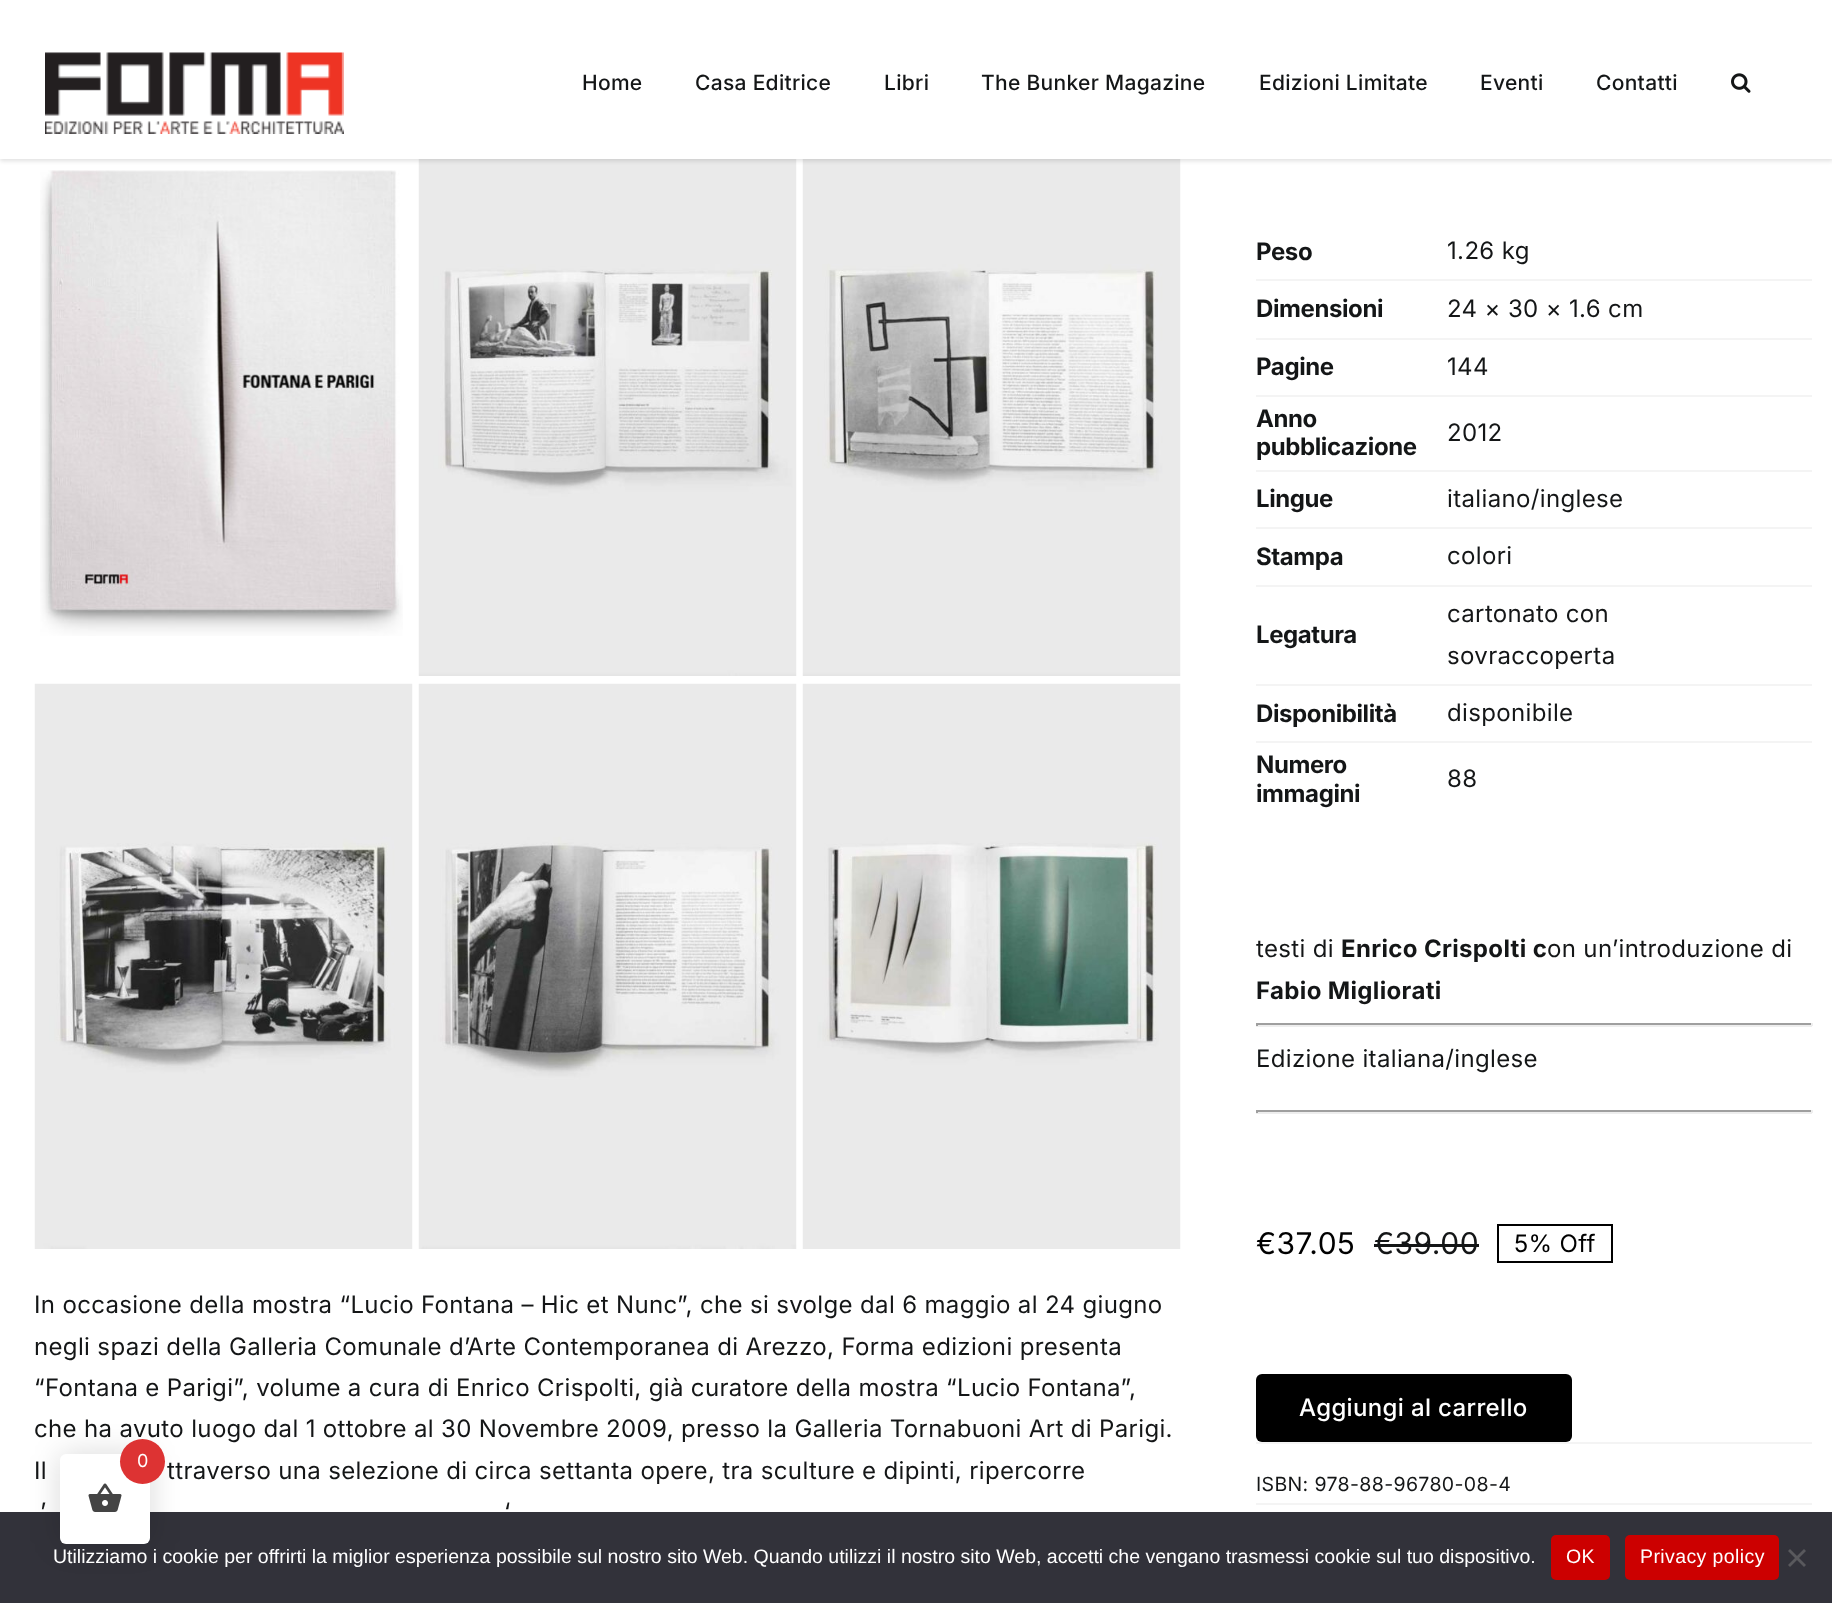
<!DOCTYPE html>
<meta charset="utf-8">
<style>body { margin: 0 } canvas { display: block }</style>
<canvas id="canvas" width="1832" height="1603"></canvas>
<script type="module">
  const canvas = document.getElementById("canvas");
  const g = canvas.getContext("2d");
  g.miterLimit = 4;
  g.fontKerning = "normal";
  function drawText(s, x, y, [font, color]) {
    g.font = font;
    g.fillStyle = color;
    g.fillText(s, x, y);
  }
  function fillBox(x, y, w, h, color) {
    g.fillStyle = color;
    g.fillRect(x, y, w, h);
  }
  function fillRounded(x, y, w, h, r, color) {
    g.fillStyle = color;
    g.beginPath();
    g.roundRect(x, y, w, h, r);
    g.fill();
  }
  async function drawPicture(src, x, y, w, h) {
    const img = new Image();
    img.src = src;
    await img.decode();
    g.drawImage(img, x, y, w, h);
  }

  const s1 = ["500 21px Inter", "#141617"];
  const s2 = ["24px Inter", "#141617"];
  const s3 = ["bold 24px Inter", "#141617"];
  const s4 = ["30px Inter", "#000000"];
  const s5 = ["30px Inter", "#141617"];
  const s6 = ["24px Inter", "#000000"];
  const s7 = ["500 24px Inter", "#FFFFFF"];
  const s8 = ["19.5px Inter", "#141617"];
  const s9 = ["18px Inter", "#FFFFFF"];
  const s10 = ["19.5px Liberation Sans", "#FFFFFF"];

  fillBox(0, 0, 1832, 1603, "#FFFFFF");
  await drawPicture("pic4.png", 418, 159, 379, 517);
  await drawPicture("pic5.png", 802, 159, 379, 517);
  g.fillStyle = "rgba(0, 0, 0, 0.12)";
  g.filter = "blur(2px)";
  g.beginPath();
  g.rect(0, 2, 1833, 159);
  g.fill();
  g.filter = "none";
  fillBox(0, 0, 1832, 159, "#FFFFFF");
  await drawPicture("pic1.png", 45, 52, 299, 82);
  g.letterSpacing = "0.3px";
  drawText("Home", 582, 90, s1);
  drawText("Casa Editrice", 695, 90, s1);
  drawText("Libri", 884, 90, s1);
  drawText("The Bunker Magazine", 981, 90, s1);
  drawText("Edizioni Limitate", 1259, 90, s1);
  drawText("Eventi", 1480, 90, s1);
  drawText("Contatti", 1596, 90, s1);
  await drawPicture("pic2.png", 1731, 73, 20, 20);
  await drawPicture("pic3.png", 40, 170, 363, 466);
  await drawPicture("pic6.png", 34, 683, 379, 566);
  await drawPicture("pic7.png", 418, 683, 379, 566);
  await drawPicture("pic8.png", 802, 683, 379, 566);
  g.letterSpacing = "0.35px";
  drawText("In occasione della mostra “Lucio Fontana – Hic et Nunc”, che si svolge dal 6 maggio al 24 giugno", 34, 1313, s2);
  drawText("negli spazi della Galleria Comunale d’Arte Contemporanea di Arezzo, Forma edizioni presenta", 34, 1355, s2);
  drawText("“Fontana e Parigi”, volume a cura di Enrico Crispolti, già curatore della mostra “Lucio Fontana”,", 34, 1396, s2);
  drawText("che ha avuto luogo dal 1 ottobre al 30 Novembre 2009, presso la Galleria Tornabuoni Art di Parigi.", 34, 1437, s2);
  drawText("Il", 34, 1479, s2);
  drawText("ttraverso una selezione di circa settanta opere, tra sculture e dipinti, ripercorre", 167, 1479, s2);
  drawText("’", 40, 1520, s2);
  drawText("‘", 504, 1520, s2);
  fillBox(1256, 279, 556, 2, "#F4F4F4");
  g.letterSpacing = "-0.4px";
  drawText("Peso", 1256, 260, s3);
  g.letterSpacing = "0.35px";
  drawText("1.26 kg", 1447, 259, s2);
  fillBox(1256, 338, 556, 2, "#F4F4F4");
  g.letterSpacing = "-0.4px";
  drawText("Dimensioni", 1256, 317, s3);
  g.letterSpacing = "0.35px";
  drawText("24 × 30 × 1.6 cm", 1447, 317, s2);
  fillBox(1256, 395, 556, 2, "#F4F4F4");
  g.letterSpacing = "-0.4px";
  drawText("Pagine", 1256, 375, s3);
  g.letterSpacing = "0.35px";
  drawText("144", 1447, 375, s2);
  fillBox(1256, 470, 556, 2, "#F4F4F4");
  g.letterSpacing = "-0.4px";
  drawText("Anno", 1256, 427, s3);
  drawText("pubblicazione", 1256, 455, s3);
  g.letterSpacing = "0.35px";
  drawText("2012", 1447, 441, s2);
  fillBox(1256, 527, 556, 2, "#F4F4F4");
  g.letterSpacing = "-0.4px";
  drawText("Lingue", 1256, 507, s3);
  g.letterSpacing = "0.35px";
  drawText("italiano/inglese", 1447, 507, s2);
  fillBox(1256, 585, 556, 2, "#F4F4F4");
  g.letterSpacing = "-0.4px";
  drawText("Stampa", 1256, 565, s3);
  g.letterSpacing = "0.35px";
  drawText("colori", 1447, 564, s2);
  fillBox(1256, 684, 556, 2, "#F4F4F4");
  g.letterSpacing = "-0.4px";
  drawText("Legatura", 1256, 643, s3);
  g.letterSpacing = "0.35px";
  drawText("cartonato con", 1447, 622, s2);
  drawText("sovraccoperta", 1447, 664, s2);
  fillBox(1256, 741, 556, 2, "#F4F4F4");
  g.letterSpacing = "-0.4px";
  drawText("Disponibilità", 1256, 722, s3);
  g.letterSpacing = "0.35px";
  drawText("disponibile", 1447, 721, s2);
  g.letterSpacing = "-0.4px";
  drawText("Numero", 1256, 773, s3);
  drawText("immagini", 1256, 802, s3);
  g.letterSpacing = "0.35px";
  drawText("88", 1447, 787, s2);
  drawText("testi di", 1256, 957, s2);
  drawText("Enrico Crispolti c", 1341, 957, s3);
  drawText("on un’introduzione di", 1547, 957, s2);
  drawText("Fabio Migliorati", 1256, 999, s3);
  fillBox(1256, 1023, 556, 2, "#9F9F9F");
  fillBox(1811, 1023, 2, 3, "#EEEEEE");
  fillBox(1256, 1025, 556, 2, "#EEEEEE");
  fillBox(1256, 1023, 2, 3, "#9F9F9F");
  drawText("Edizione italiana/inglese", 1256, 1067, s2);
  fillBox(1256, 1110, 556, 2, "#9F9F9F");
  fillBox(1811, 1110, 2, 3, "#EEEEEE");
  fillBox(1256, 1112, 556, 2, "#EEEEEE");
  fillBox(1256, 1110, 2, 3, "#9F9F9F");
  g.letterSpacing = "0.5px";
  drawText("€37.05", 1256, 1254, s4);
  drawText("€39.00", 1374, 1254, s5);
  fillBox(1374, 1244, 105, 3, "#141617");
  g.strokeStyle = "#000000";
  g.lineWidth = 2;
  g.strokeRect(1498, 1225, 114, 37);
  g.letterSpacing = "0.35px";
  drawText("5% Off", 1514, 1252, s6);
  fillRounded(1256, 1374, 316, 68, 6, "#000000");
  drawText("Aggiungi al carrello", 1299, 1416, s7);
  fillBox(1256, 1442, 556, 2, "#F4F4F4");
  fillBox(1256, 1503, 556, 2, "#F4F4F4");
  drawText("ISBN: 978-88-96780-08-4", 1256, 1491, s8);
  fillBox(0, 1512, 1832, 91, "#32323A");
  g.fillStyle = "rgba(0, 0, 0, 0.15)";
  g.filter = "blur(15px)";
  g.beginPath();
  g.roundRect(60, 1454, 90, 90, 6);
  g.fill();
  g.filter = "none";
  fillRounded(60, 1454, 90, 90, 6, "#FFFFFF");
  await drawPicture("pic9.png", 88, 1483, 34, 29);
  g.fillStyle = "#DD3333";
  g.beginPath();
  g.arc(142.5, 1461.5, 22.5, 0, Math.PI * 2);
  g.fill();
  drawText("0", 137, 1467, s9);
  g.letterSpacing = "0px";
  drawText("Utilizziamo i cookie per offrirti la miglior esperienza possibile sul nostro sito Web. Quando utilizzi il nostro sito Web, accetti che vengano trasmessi cookie sul tuo dispositivo.", 53, 1563, s10);
  fillRounded(1551, 1535, 59, 45, 5, "#CC0000");
  g.letterSpacing = "0.4px";
  drawText("OK", 1566, 1563, s10);
  fillRounded(1625, 1535, 154, 45, 5, "#CC0000");
  drawText("Privacy policy", 1640, 1563, s10);
  g.fillStyle = "#59595D";
  g.beginPath();
  g.moveTo(1804, 1549);
  g.lineTo(1806, 1551);
  g.lineTo(1790, 1567);
  g.lineTo(1788, 1565);
  g.closePath();
  g.fill();
  g.beginPath();
  g.moveTo(1788, 1551);
  g.lineTo(1790, 1549);
  g.lineTo(1806, 1565);
  g.lineTo(1804, 1567);
  g.closePath();
  g.fill();
</script>
